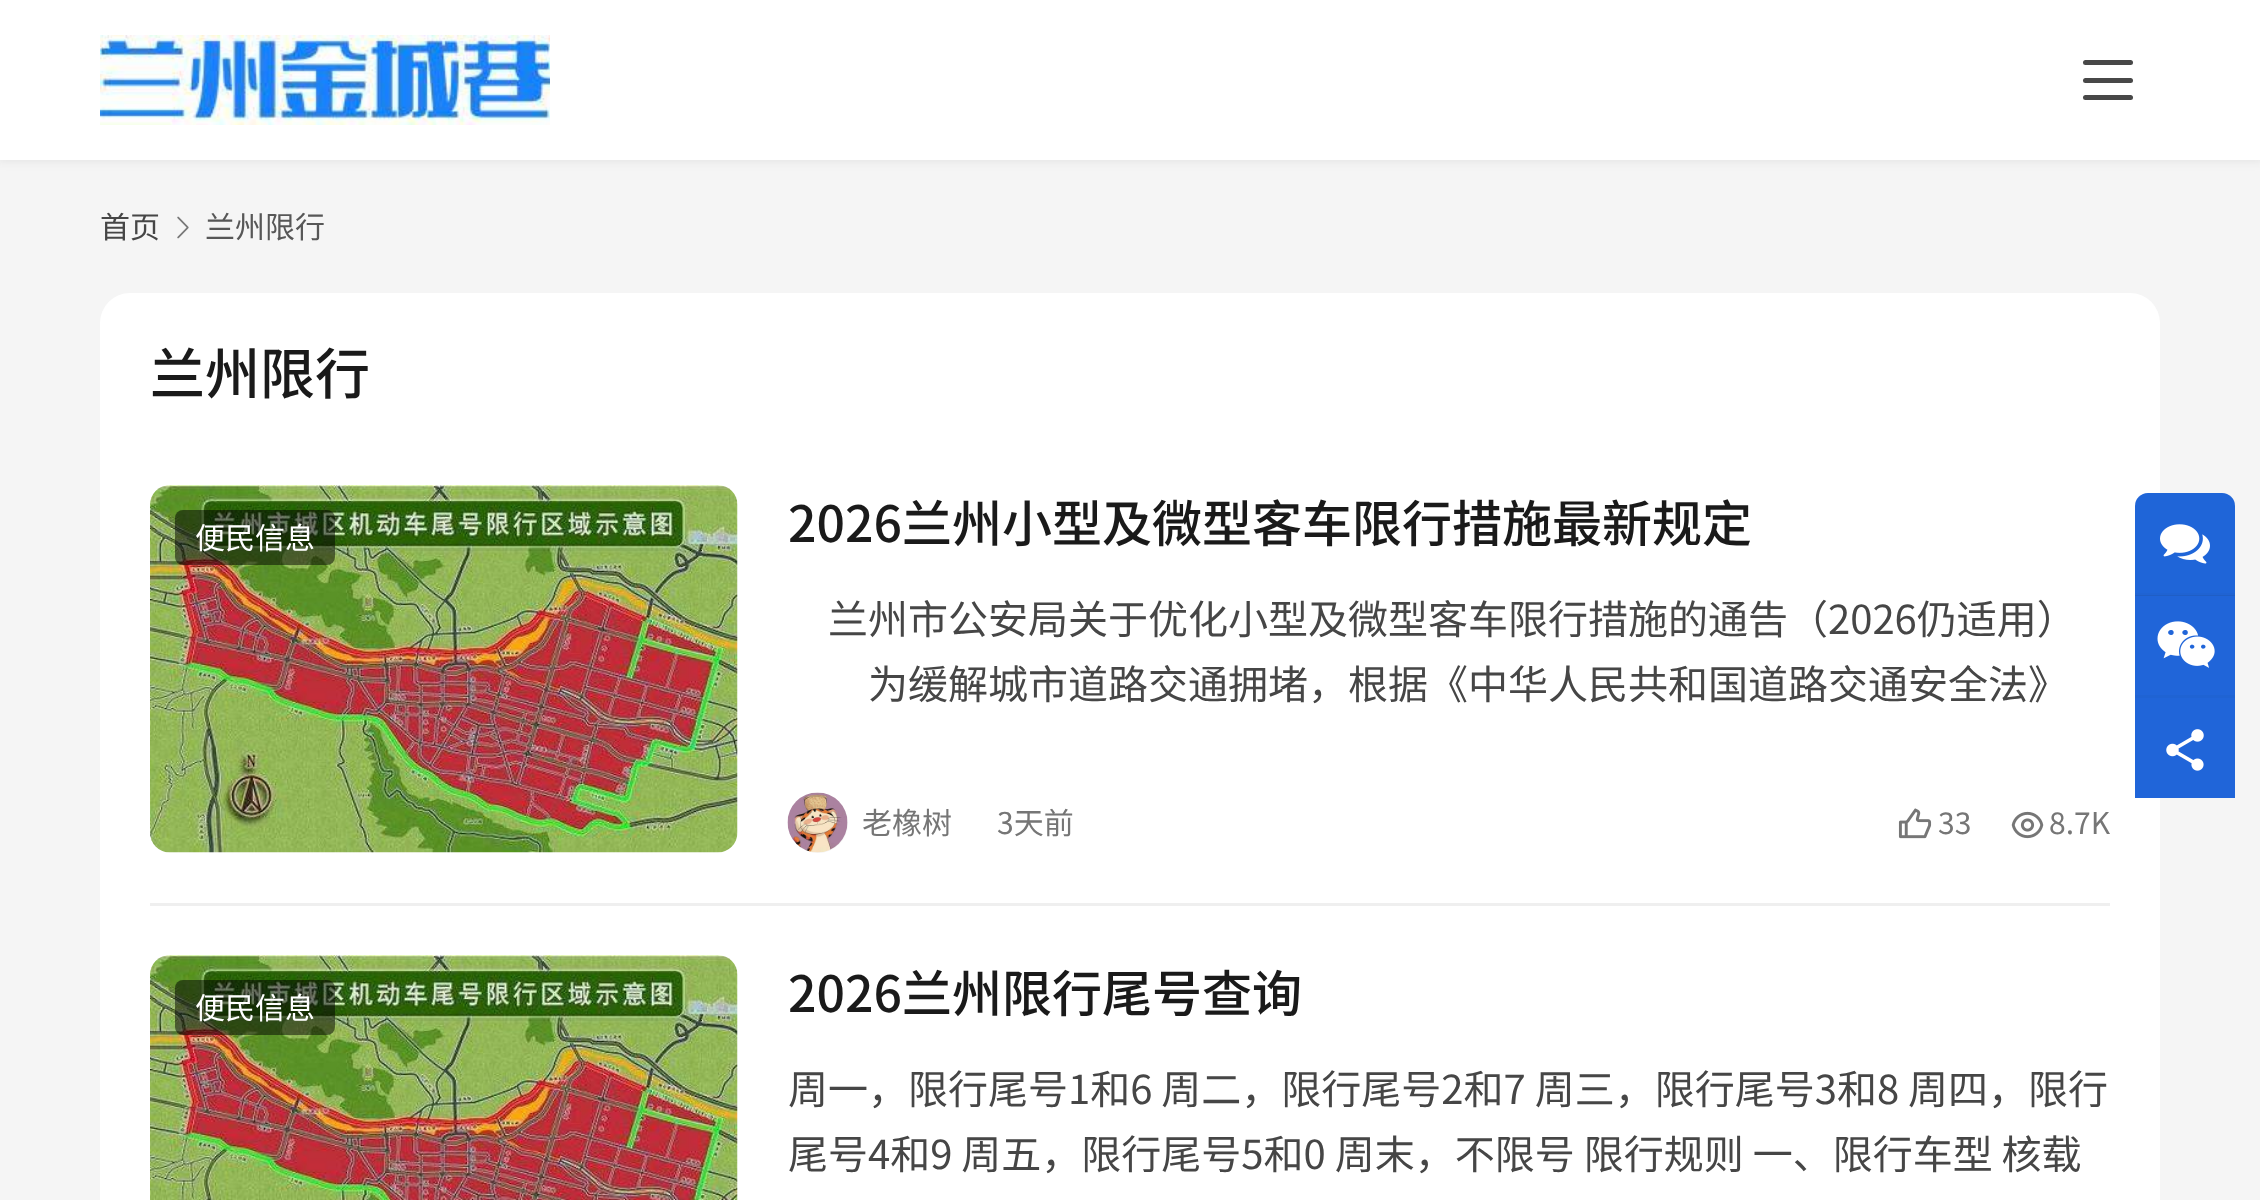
<!DOCTYPE html>
<meta charset="utf-8">
<style>body { margin: 0 } canvas { display: block }</style>
<canvas id="canvas" width="2260" height="1200"></canvas>
<script type="module">
  const canvas = document.getElementById("canvas");
  const g = canvas.getContext("2d");
  g.miterLimit = 4;
  g.fontKerning = "none";
  function drawText(s, x, y, [font, color]) {
    g.font = font;
    g.fillStyle = color;
    g.fillText(s, x, y);
  }
  function fillBox(x, y, w, h, color) {
    g.fillStyle = color;
    g.fillRect(x, y, w, h);
  }
  function fillRounded(x, y, w, h, r, color) {
    g.fillStyle = color;
    g.beginPath();
    g.roundRect(x, y, w, h, r);
    g.fill();
  }
  async function drawPicture(src, x, y, w, h) {
    const img = new Image();
    img.src = src;
    await img.decode();
    g.drawImage(img, x, y, w, h);
  }

  const s1 = ["30px Noto Sans CJK SC", "#464646"];
  const s2 = ["30px Noto Sans CJK SC", "#575757"];
  const s3 = ["500 55px Noto Sans CJK SC", "#1A1A1A"];
  const s4 = ["30px Noto Sans CJK SC", "#FFFFFF"];
  const s5 = ["500 50px Noto Sans CJK SC", "#1A1A1A"];
  const s6 = ["40px Noto Sans CJK SC", "#464646"];
  const s7 = ["30px Noto Sans CJK SC", "#767676"];

  fillBox(0, 0, 2260, 1200, "#F5F5F5");
  g.fillStyle = "rgba(26, 26, 26, 0.06)";
  g.filter = "blur(4px)";
  g.beginPath();
  g.rect(-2, -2, 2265, 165);
  g.fill();
  g.filter = "none";
  fillBox(0, 0, 2260, 160, "#FFFFFF");
  await drawPicture("pic1.png", 100, 35, 450, 90);
  fillRounded(2083, 60, 50, 5, 2.5, "#484848");
  fillRounded(2083, 78, 50, 5, 2.5, "#484848");
  fillRounded(2083, 95, 50, 5, 2.5, "#484848");
  drawText("首页", 100, 238, s1);
  await drawPicture("pic2.png", 177, 216, 12, 23);
  drawText("兰州限行", 205, 238, s2);
  fillRounded(100, 293, 2060, 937, 30, "#FFFFFF");
  drawText("兰州限行", 150, 394, s3);
  fillBox(150, 903, 1960, 3, "#EFEFEF");
  await drawPicture("pic3.png", 150, 485, 588, 368);
  fillRounded(175, 510, 160, 55, 8, "rgba(0, 0, 0, 0.5)");
  drawText("便民信息", 195, 549, s4);
  drawText("2026兰州小型及微型客车限行措施最新规定", 788, 542, s5);
  drawText("兰州市公安局关于优化小型及微型客车限行措施的通告（2026仍适用）", 828, 634, s6);
  drawText("为缓解城市道路交通拥堵，根据《中华人民共和国道路交通安全法》", 868, 699, s6);
  g.fillStyle = "#F5F5F5";
  g.beginPath();
  g.arc(818, 823, 30, 0, Math.PI * 2);
  g.fill();
  await drawPicture("pic4.png", 787, 792, 61, 61);
  drawText("老橡树", 862, 834, s7);
  drawText("3天前", 997, 834, s7);
  await drawPicture("pic5.png", 1898, 808, 34, 31);
  drawText("33", 1938, 834, s7);
  await drawPicture("pic6.png", 2011, 811, 33, 28);
  drawText("8.7K", 2049, 834, s7);
  await drawPicture("pic7.png", 150, 955, 588, 245);
  fillRounded(175, 980, 160, 55, 8, "rgba(0, 0, 0, 0.5)");
  drawText("便民信息", 195, 1019, s4);
  drawText("2026兰州限行尾号查询", 788, 1012, s5);
  drawText("周一，限行尾号1和6 周二，限行尾号2和7 周三，限行尾号3和8 周四，限行", 788, 1104, s6);
  drawText("尾号4和9 周五，限行尾号5和0 周末，不限号 限行规则 一、限行车型 核载", 788, 1169, s6);
  g.fillStyle = "#206BE7";
  g.beginPath();
  g.roundRect(2135, 493, 100, 100, [13, 13, 0, 0]);
  g.fill();
  g.fillStyle = "rgba(26, 26, 26, 0.07)";
  g.beginPath();
  g.roundRect(2135, 493, 100, 100, [13, 13, 0, 0]);
  g.fill();
  await drawPicture("pic8.png", 2160, 524, 50, 40);
  fillBox(2135, 596, 100, 99, "#2065D9");
  fillBox(2135, 593, 100, 2, "#1F63D3");
  fillBox(2135, 595, 100, 1, "#1F5EC6");
  await drawPicture("pic9.png", 2157, 621, 58, 47);
  fillBox(2135, 695, 100, 3, "#1F63D3");
  fillBox(2135, 698, 100, 100, "#2065D9");
  await drawPicture("pic10.png", 2166, 729, 38, 42);
</script>
